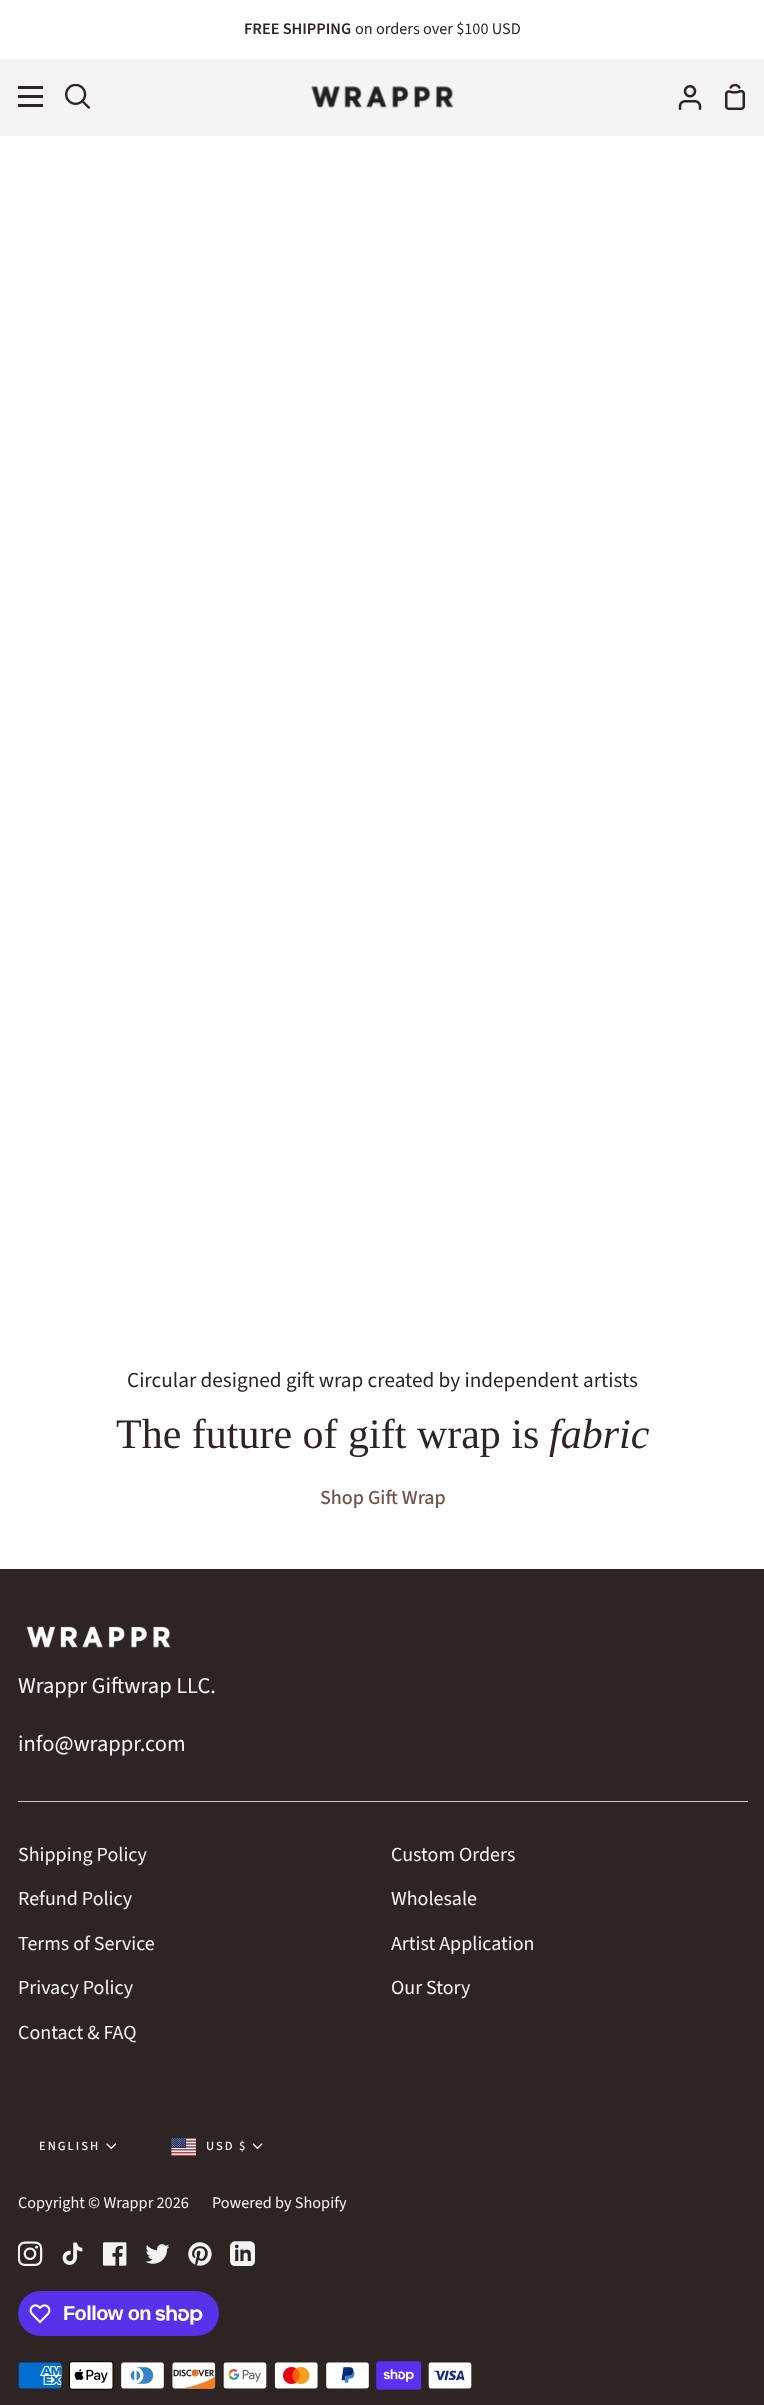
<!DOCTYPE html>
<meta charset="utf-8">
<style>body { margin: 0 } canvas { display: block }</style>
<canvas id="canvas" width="764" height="2405"></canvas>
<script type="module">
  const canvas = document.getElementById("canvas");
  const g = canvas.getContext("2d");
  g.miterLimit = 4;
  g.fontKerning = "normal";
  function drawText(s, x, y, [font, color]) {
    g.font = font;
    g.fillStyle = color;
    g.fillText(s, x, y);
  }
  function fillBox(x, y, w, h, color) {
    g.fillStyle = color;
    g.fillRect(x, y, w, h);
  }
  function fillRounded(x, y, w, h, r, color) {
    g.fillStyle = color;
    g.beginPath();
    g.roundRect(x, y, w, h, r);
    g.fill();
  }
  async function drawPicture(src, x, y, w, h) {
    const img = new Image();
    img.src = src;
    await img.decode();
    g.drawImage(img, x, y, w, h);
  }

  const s1 = ["600 16.25px Source Sans Pro", "#2E2424"];
  const s2 = ["16.25px Source Sans Pro", "#2E2424"];
  const s3 = ["21.25px Source Sans Pro", "#2E2424"];
  const s4 = ["42px Liberation Serif", "#2E2424"];
  const s5 = ["italic 42px Liberation Serif", "#2E2424"];
  const s6 = ["500 20px Source Sans Pro", "#6F5548"];
  const s7 = ["22.5px Source Sans Pro", "#F4F4F4"];
  const s8 = ["20px Source Sans Pro", "#F4F4F4"];
  const s9 = ["500 12.5px Source Sans Pro", "#F4F4F4"];
  const s10 = ["16.25px Source Sans Pro", "#F4F4F4"];
  const s11 = ["bold 20px Liberation Sans", "#FFFFFF"];

  fillBox(0, 0, 764, 2405, "#FFFFFF");
  fillBox(0, 59, 764, 77, "#F4F4F4");
  drawText("FREE SHIPPING", 244, 34, s1);
  drawText("on orders over $100 USD", 355, 34, s2);
  fillBox(18, 86, 25, 3, "#2E2424");
  fillBox(18, 95, 25, 3, "#2E2424");
  fillBox(18, 104, 25, 3, "#2E2424");
  await drawPicture("pic1.png", 65, 84, 25, 25);
  await drawPicture("pic2.png", 311, 86, 143, 22);
  await drawPicture("pic3.png", 678, 85, 24, 25);
  await drawPicture("pic4.png", 725, 84, 20, 26);
  drawText("Circular designed gift wrap created by independent artists", 127, 1387, s3);
  drawText("The future of gift wrap is", 116, 1448, s4);
  drawText("fabric", 549, 1448, s5);
  drawText("Shop Gift Wrap", 320, 1504, s6);
  fillBox(0, 1569, 764, 836, "#2E2424");
  await drawPicture("pic5.png", 26, 1626, 145, 22);
  drawText("Wrappr Giftwrap LLC.", 18, 1693, s7);
  drawText("info@wrappr.com", 18, 1751, s7);
  fillBox(18, 1801, 730, 1, "#CFC8BC");
  drawText("Shipping Policy", 18, 1861, s8);
  drawText("Refund Policy", 18, 1905, s8);
  drawText("Terms of Service", 18, 1950, s8);
  drawText("Privacy Policy", 18, 1994, s8);
  drawText("Contact & FAQ", 18, 2039, s8);
  drawText("Custom Orders", 391, 1861, s8);
  drawText("Wholesale", 391, 1905, s8);
  drawText("Artist Application", 391, 1950, s8);
  drawText("Our Story", 391, 1994, s8);
  g.letterSpacing = "2px";
  drawText("ENGLISH", 39, 2150, s9);
  await drawPicture("pic6.png", 106, 2143, 10, 7);
  await drawPicture("pic7.png", 171, 2138, 25, 18);
  drawText("USD $", 206, 2150, s9);
  await drawPicture("pic8.png", 253, 2143, 10, 7);
  g.letterSpacing = "0px";
  drawText("Copyright © Wrappr 2026", 18, 2208, s10);
  drawText("Powered by Shopify", 212, 2208, s10);
  await drawPicture("pic9.png", 18, 2241, 25, 25);
  await drawPicture("pic10.png", 62, 2242, 21, 23);
  await drawPicture("pic11.png", 103, 2242, 24, 24);
  await drawPicture("pic12.png", 145, 2244, 25, 20);
  await drawPicture("pic13.png", 188, 2242, 24, 24);
  await drawPicture("pic14.png", 230, 2241, 25, 25);
  fillRounded(18, 2291, 201, 45, 22.5, "#5433EB");
  await drawPicture("pic15.png", 29, 2304, 22, 20);
  g.letterSpacing = "-0.6px";
  drawText("Follow on", 63, 2320, s11);
  await drawPicture("pic16.png", 155, 2305, 48, 20);
  await drawPicture("pic17.png", 18, 2362, 44, 27);
  await drawPicture("pic18.png", 69, 2361, 45, 29);
  await drawPicture("pic19.png", 121, 2362, 43, 27);
  await drawPicture("pic20.png", 172, 2362, 44, 27);
  await drawPicture("pic21.png", 223, 2362, 44, 27);
  await drawPicture("pic22.png", 274, 2362, 44, 27);
  await drawPicture("pic23.png", 326, 2362, 43, 27);
  await drawPicture("pic24.png", 376, 2361, 45, 29);
  await drawPicture("pic25.png", 428, 2362, 44, 27);
</script>
